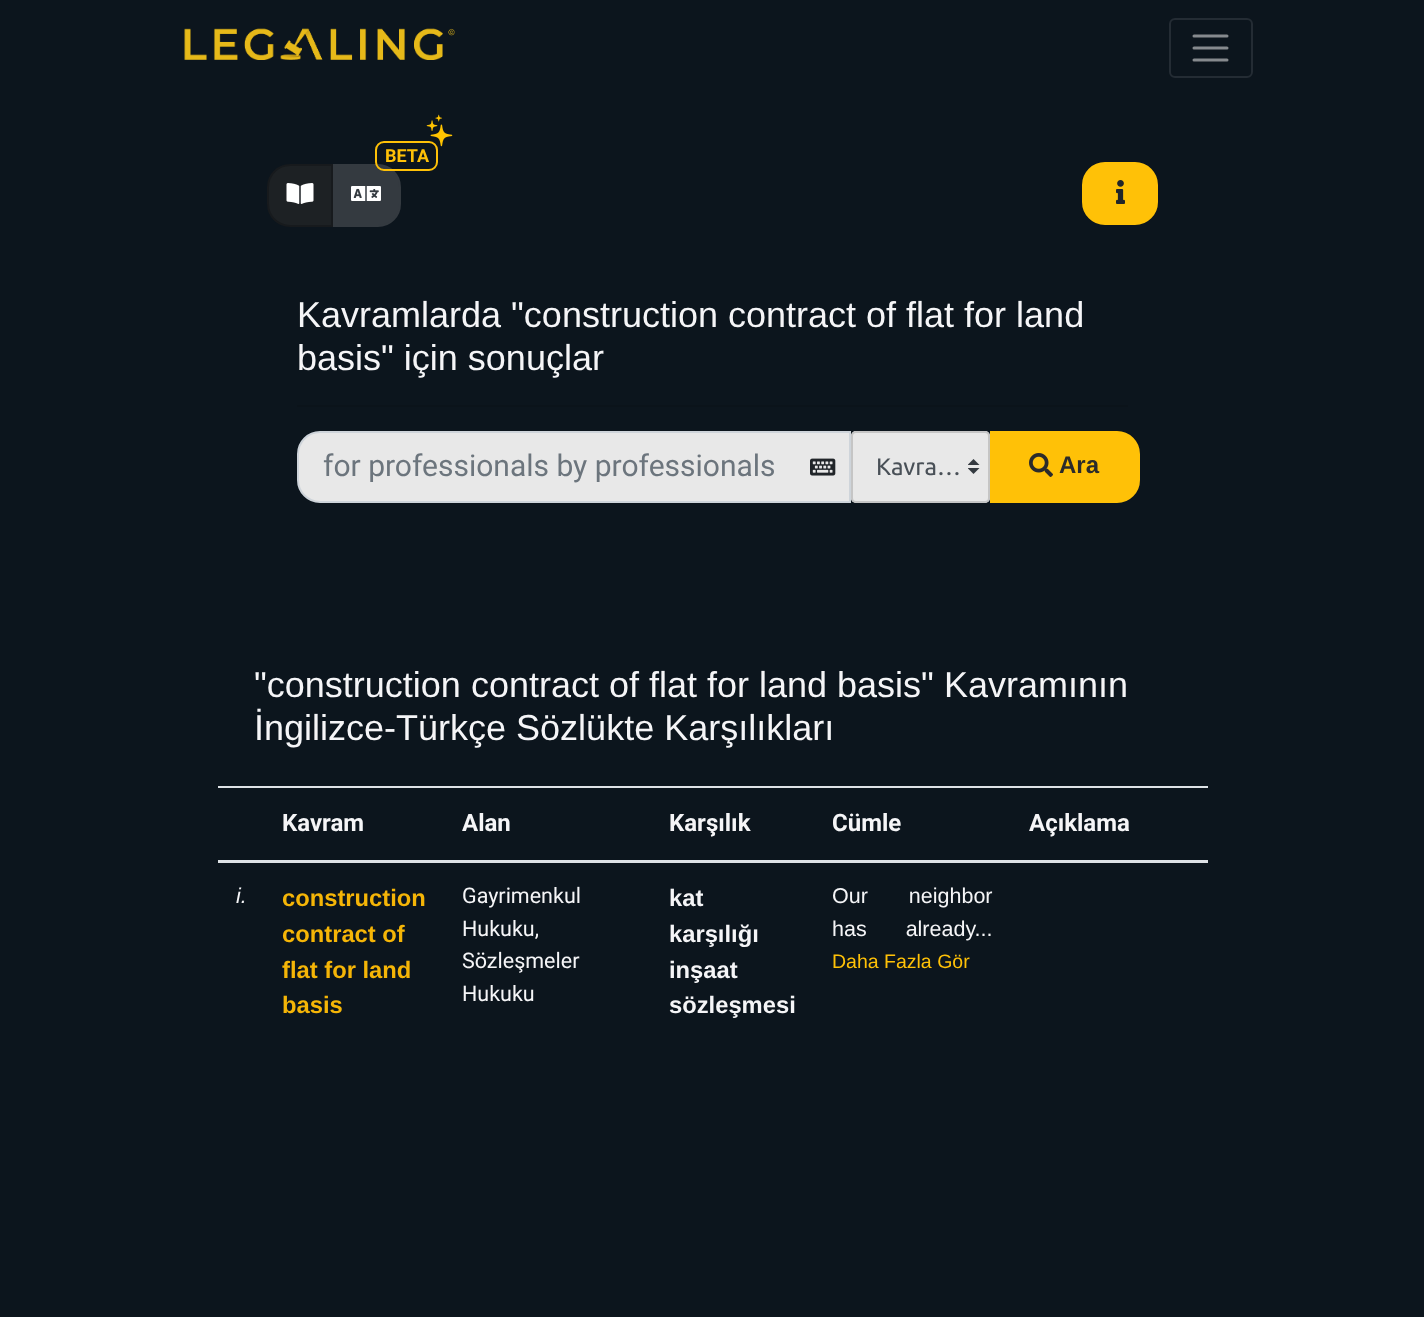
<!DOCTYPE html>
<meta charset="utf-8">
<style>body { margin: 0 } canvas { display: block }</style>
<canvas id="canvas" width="1424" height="1317"></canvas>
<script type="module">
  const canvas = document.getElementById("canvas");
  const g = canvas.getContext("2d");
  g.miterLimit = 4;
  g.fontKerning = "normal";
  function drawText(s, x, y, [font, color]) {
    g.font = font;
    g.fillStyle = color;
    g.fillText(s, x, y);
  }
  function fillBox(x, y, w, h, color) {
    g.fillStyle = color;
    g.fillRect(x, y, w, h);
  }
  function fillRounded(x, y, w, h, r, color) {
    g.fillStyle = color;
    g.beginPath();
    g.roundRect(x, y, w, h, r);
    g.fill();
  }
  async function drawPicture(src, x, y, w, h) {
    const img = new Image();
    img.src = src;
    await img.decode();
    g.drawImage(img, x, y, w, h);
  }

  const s1 = ["bold 18px Roboto", "#FFC107"];
  const s2 = ["36px Liberation Sans", "#F5F5F7"];
  const s3 = ["30px Roboto", "#6C757D"];
  const s4 = ["24px Ubuntu", "#495057"];
  const s5 = ["bold 24px Liberation Sans", "#2B2B2B"];
  const s6 = ["bold 24px Roboto", "#F5F5F7"];
  const s7 = ["italic 21.5px Liberation Sans", "#F5F5F7"];
  const s8 = ["bold 23.75px Liberation Sans", "#F5B507"];
  const s9 = ["21.5px Roboto", "#F5F5F7"];
  const s10 = ["bold 23.75px Liberation Sans", "#F5F5F7"];
  const s11 = ["21.5px Liberation Sans", "#F5F5F7"];
  const s12 = ["19.5px Liberation Sans", "#FFC107"];

  fillBox(0, 0, 1424, 1317, "#0C151D");
  await drawPicture("pic1.png", 184, 28, 271, 32);
  g.beginPath();
  g.roundRect(1170, 19, 82, 58, 5);
  g.strokeStyle = "#242C34";
  g.lineWidth = 2;
  g.stroke();
  g.beginPath();
  g.moveTo(1194, 36);
  g.lineTo(1227, 36);
  g.moveTo(1194, 48);
  g.lineTo(1227, 48);
  g.moveTo(1194, 60);
  g.lineTo(1227, 60);
  g.strokeStyle = "#868A8E";
  g.lineWidth = 3;
  g.lineCap = "round";
  g.stroke();
  g.fillStyle = "#343A40";
  g.beginPath();
  g.roundRect(333, 165, 67, 61, [0, 22, 22, 0]);
  g.fill();
  g.strokeStyle = "#343A40";
  g.lineWidth = 2;
  g.stroke();
  g.beginPath();
  g.roundRect(376, 142, 61, 28, 8);
  g.strokeStyle = "#FFC107";
  g.stroke();
  await drawPicture("pic2.png", 426, 114, 27, 33);
  drawText("BETA", 385, 162, s1);
  g.fillStyle = "#1D2124";
  g.beginPath();
  g.roundRect(268, 165, 64, 61, [22, 0, 0, 22]);
  g.fill();
  g.strokeStyle = "#171A1D";
  g.stroke();
  await drawPicture("pic3.png", 286, 183, 28, 21);
  await drawPicture("pic4.png", 351, 186, 30, 15);
  g.fillStyle = "#FFC107";
  g.beginPath();
  g.roundRect(1083, 163, 74, 61, 22);
  g.fill();
  g.strokeStyle = "#FFC107";
  g.stroke();
  await drawPicture("pic5.png", 1116, 180, 9, 24);
  drawText("Kavramlarda \"construction contract of flat for land", 297, 327, s2);
  drawText("basis\" için sonuçlar", 297, 370, s2);
  fillBox(297, 405, 831, 2, "#0B131A");
  g.fillStyle = "#E8E8E8";
  g.beginPath();
  g.roundRect(298, 432, 552, 70, [22, 0, 0, 22]);
  g.fill();
  g.strokeStyle = "#CED4DA";
  g.stroke();
  drawText("for professionals by professionals", 323, 476, s3);
  await drawPicture("pic6.png", 810, 458, 26, 18);
  fillRounded(851, 431, 139, 72, 5, "#E8E8E8");
  await drawPicture("pic7.png", 968, 459, 12, 15);
  g.beginPath();
  g.roundRect(852, 432, 137, 70, 4);
  g.strokeStyle = "#C5C5C5";
  g.stroke();
  drawText("Kavra…", 876, 475, s4);
  g.fillStyle = "#FFC107";
  g.beginPath();
  g.roundRect(991, 432, 148, 70, [0, 22, 22, 0]);
  g.fill();
  g.strokeStyle = "#FFC107";
  g.stroke();
  await drawPicture("pic8.png", 1029, 453, 24, 24);
  drawText("Ara", 1059, 473, s5);
  drawText("\"construction contract of flat for land basis\" Kavramının", 254, 697, s2);
  drawText("İngilizce-Türkçe Sözlükte Karşılıkları", 254, 740, s2);
  drawText("Kavram", 282, 831, s6);
  drawText("Alan", 462, 831, s6);
  drawText("Karşılık", 669, 831, s6);
  drawText("Cümle", 832, 831, s6);
  fillBox(218, 786, 990, 2, "#DEE2E6");
  fillBox(218, 860, 990, 3, "#DEE2E6");
  drawText("Açıklama", 1029, 831, s6);
  drawText("i.", 236, 903, s7);
  drawText("construction", 282, 906, s8);
  drawText("contract of", 282, 942, s8);
  drawText("flat for land", 282, 978, s8);
  drawText("basis", 282, 1013, s8);
  drawText("Gayrimenkul", 462, 903, s9);
  drawText("Hukuku,", 462, 936, s9);
  drawText("Sözleşmeler", 462, 968, s9);
  drawText("Hukuku", 462, 1001, s9);
  drawText("kat", 669, 906, s10);
  drawText("karşılığı", 669, 942, s10);
  drawText("inşaat", 669, 978, s10);
  drawText("sözleşmesi", 669, 1013, s10);
  g.wordSpacing = "35px";
  drawText("Our neighbor", 832, 903, s11);
  g.wordSpacing = "33px";
  drawText("has already...", 832, 936, s11);
  g.wordSpacing = "0px";
  drawText("Daha Fazla Gör", 832, 968, s12);
</script>
